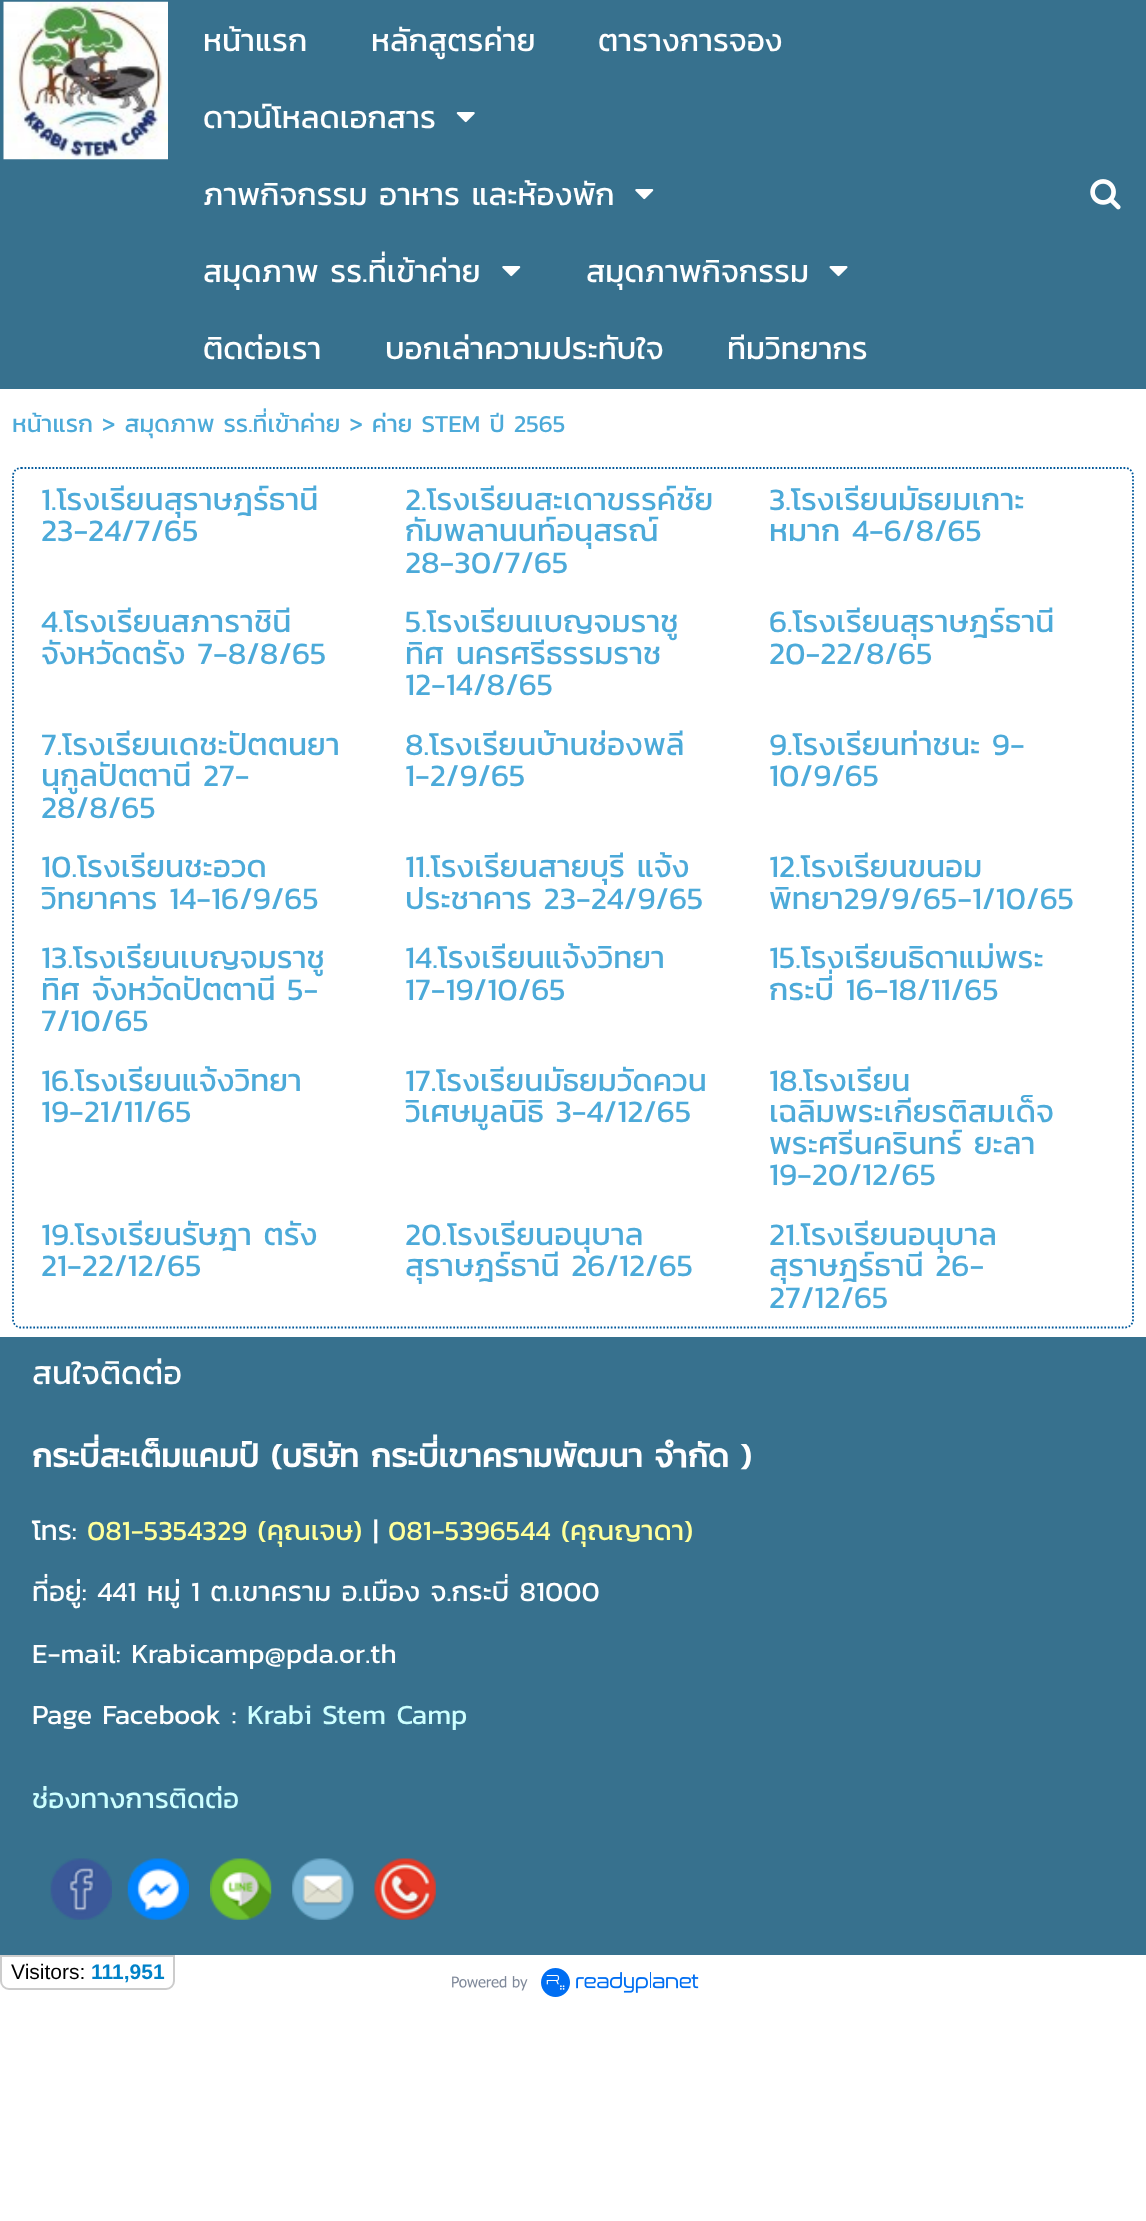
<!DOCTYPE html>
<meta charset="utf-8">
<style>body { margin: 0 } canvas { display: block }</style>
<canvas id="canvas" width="1146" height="2221"></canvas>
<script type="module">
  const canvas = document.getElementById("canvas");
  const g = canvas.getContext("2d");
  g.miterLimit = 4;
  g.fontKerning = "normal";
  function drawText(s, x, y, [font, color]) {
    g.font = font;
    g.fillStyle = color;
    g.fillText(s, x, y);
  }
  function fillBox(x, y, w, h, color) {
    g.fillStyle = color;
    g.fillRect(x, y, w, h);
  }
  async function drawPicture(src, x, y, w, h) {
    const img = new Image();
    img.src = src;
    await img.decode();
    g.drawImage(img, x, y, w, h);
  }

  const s1 = ["31.5px Kanit", "#FFFFFF"];
  const s2 = ["24.5px Kanit", "#4CAAD9"];
  const s3 = ["31.5px Kanit", "#4CAAD9"];
  const s4 = ["32.7px Kanit", "#FFFFFF"];
  const s5 = ["bold 32.7px Kanit", "#FFFFFF"];
  const s6 = ["28px Kanit", "#FFFFFF"];
  const s7 = ["28px Kanit", "#FFFF99"];
  const s8 = ["28px Kanit", "#CCFFFF"];
  const s9 = ["21px Liberation Sans", "#000000"];
  const s10 = ["bold 21px Liberation Sans", "#0081C8"];

  fillBox(0, 0, 1146, 2221, "#FFFFFF");
  fillBox(0, 0, 1146, 389, "#37718E");
  await drawPicture("pic1.png", 3, 1, 165, 159);
  drawText("หน้าแรก", 203, 51, s1);
  drawText("หลักสูตรค่าย", 371, 51, s1);
  drawText("ตารางการจอง", 598, 51, s1);
  drawText("ดาวน์โหลดเอกสาร", 203, 128, s1);
  await drawPicture("pic2.png", 456, 112, 19, 11);
  drawText("ภาพกิจกรรม อาหาร และห้องพัก", 203, 205, s1);
  await drawPicture("pic3.png", 635, 189, 19, 11);
  drawText("สมุดภาพ รร.ที่เข้าค่าย", 203, 282, s1);
  await drawPicture("pic3.png", 502, 266, 19, 11);
  drawText("สมุดภาพกิจกรรม", 586, 282, s1);
  await drawPicture("pic4.png", 829, 266, 19, 11);
  drawText("ติดต่อเรา", 203, 359, s1);
  drawText("บอกเล่าความประทับใจ", 385, 359, s1);
  drawText("ทีมวิทยากร", 727, 359, s1);
  await drawPicture("pic5.png", 1090, 179, 31, 31);
  drawText("หน้าแรก > สมุดภาพ รร.ที่เข้าค่าย > ค่าย STEM ปี 2565", 12, 432, s2);
  g.beginPath();
  g.moveTo(21, 468);
  g.lineTo(1125, 468);
  g.bezierCurveTo(1129.5, 468, 1133, 471.5, 1133, 476);
  g.lineTo(1133, 1319.5);
  g.bezierCurveTo(1133, 1324, 1129.5, 1327.5, 1125, 1327.5);
  g.lineTo(21, 1327.5);
  g.bezierCurveTo(16.5, 1327.5, 13, 1324, 13, 1319.5);
  g.lineTo(13, 476);
  g.bezierCurveTo(13, 471.5, 16.5, 468, 21, 468);
  g.closePath();
  g.strokeStyle = "#01589B";
  g.lineWidth = 1.8;
  g.setLineDash([1.75, 1.75]);
  g.stroke();
  drawText("1.โรงเรียนสุราษฎร์ธานี", 41, 510, s3);
  drawText("23-24/7/65", 41, 541, s3);
  drawText("2.โรงเรียนสะเดาขรรค์ชัย", 405, 510, s3);
  drawText("กัมพลานนท์อนุสรณ์", 405, 541, s3);
  drawText("28-30/7/65", 405, 573, s3);
  drawText("3.โรงเรียนมัธยมเกาะ", 769, 510, s3);
  drawText("หมาก 4-6/8/65", 769, 541, s3);
  drawText("4.โรงเรียนสภาราชินี", 41, 632, s3);
  drawText("จังหวัดตรัง 7-8/8/65", 41, 664, s3);
  drawText("5.โรงเรียนเบญจมราชู", 405, 632, s3);
  drawText("ทิศ นครศรีธรรมราช", 405, 664, s3);
  drawText("12-14/8/65", 405, 695, s3);
  drawText("6.โรงเรียนสุราษฎร์ธานี", 769, 632, s3);
  drawText("20-22/8/65", 769, 664, s3);
  drawText("7.โรงเรียนเดชะปัตตนยา", 41, 755, s3);
  drawText("นุกูลปัตตานี 27-", 41, 786, s3);
  drawText("28/8/65", 41, 818, s3);
  drawText("8.โรงเรียนบ้านช่องพลี", 405, 755, s3);
  drawText("1-2/9/65", 405, 786, s3);
  drawText("9.โรงเรียนท่าชนะ 9-", 769, 755, s3);
  drawText("10/9/65", 769, 786, s3);
  drawText("10.โรงเรียนชะอวด", 41, 877, s3);
  drawText("วิทยาคาร 14-16/9/65", 41, 909, s3);
  drawText("11.โรงเรียนสายบุรี แจ้ง", 405, 877, s3);
  drawText("ประชาคาร 23-24/9/65", 405, 909, s3);
  drawText("12.โรงเรียนขนอม", 769, 877, s3);
  drawText("พิทยา29/9/65-1/10/65", 769, 909, s3);
  drawText("13.โรงเรียนเบญจมราชู", 41, 968, s3);
  drawText("ทิศ จังหวัดปัตตานี 5-", 41, 1000, s3);
  drawText("7/10/65", 41, 1031, s3);
  drawText("14.โรงเรียนแจ้งวิทยา", 405, 968, s3);
  drawText("17-19/10/65", 405, 1000, s3);
  drawText("15.โรงเรียนธิดาแม่พระ", 769, 968, s3);
  drawText("กระบี่ 16-18/11/65", 769, 1000, s3);
  drawText("16.โรงเรียนแจ้งวิทยา", 41, 1091, s3);
  drawText("19-21/11/65", 41, 1122, s3);
  drawText("17.โรงเรียนมัธยมวัดควน", 405, 1091, s3);
  drawText("วิเศษมูลนิธิ 3-4/12/65", 405, 1122, s3);
  drawText("18.โรงเรียน", 769, 1091, s3);
  drawText("เฉลิมพระเกียรติสมเด็จ", 769, 1122, s3);
  drawText("พระศรีนครินทร์ ยะลา", 769, 1154, s3);
  drawText("19-20/12/65", 769, 1185, s3);
  drawText("19.โรงเรียนรัษฎา ตรัง", 41, 1245, s3);
  drawText("21-22/12/65", 41, 1276, s3);
  drawText("20.โรงเรียนอนุบาล", 405, 1245, s3);
  drawText("สุราษฎร์ธานี 26/12/65", 405, 1276, s3);
  drawText("21.โรงเรียนอนุบาล", 769, 1245, s3);
  drawText("สุราษฎร์ธานี 26-", 769, 1276, s3);
  drawText("27/12/65", 769, 1308, s3);
  fillBox(0, 1337, 1146, 618, "#37718E");
  drawText("สนใจติดต่อ", 32, 1384, s4);
  drawText("กระบี่สะเต็มแคมป์ (บริษัท กระบี่เขาครามพัฒนา จำกัด )", 32, 1467, s5);
  drawText("โทร:", 32, 1540, s6);
  drawText("081-5354329 (คุณเจษ)", 87, 1540, s7);
  drawText("|", 373, 1540, s6);
  drawText("081-5396544 (คุณญาดา)", 388, 1540, s7);
  drawText("ที่อยู่: 441 หมู่ 1 ต.เขาคราม อ.เมือง จ.กระบี่ 81000", 32, 1601, s6);
  drawText("E-mail: Krabicamp@pda.or.th", 32, 1663, s6);
  drawText("Page Facebook :", 32, 1724, s6);
  drawText("Krabi Stem Camp", 247, 1724, s8);
  drawText("ช่องทางการติดต่อ", 32, 1808, s8);
  await drawPicture("pic6.png", 50, 1858, 62, 62);
  await drawPicture("pic7.png", 127, 1858, 62, 62);
  await drawPicture("pic8.png", 210, 1858, 62, 62);
  await drawPicture("pic9.png", 292, 1858, 62, 62);
  await drawPicture("pic10.png", 374, 1858, 62, 62);
  g.beginPath();
  g.roundRect(1, 1956, 173, 33, [0, 0, 8, 8]);
  g.strokeStyle = "#CCCCCC";
  g.lineWidth = 2;
  g.setLineDash([]);
  g.stroke();
  drawText("Visitors:", 11, 1979, s9);
  drawText("111,951", 91, 1979, s10);
  await drawPicture("pic11.png", 452, 1968, 247, 29);
</script>
